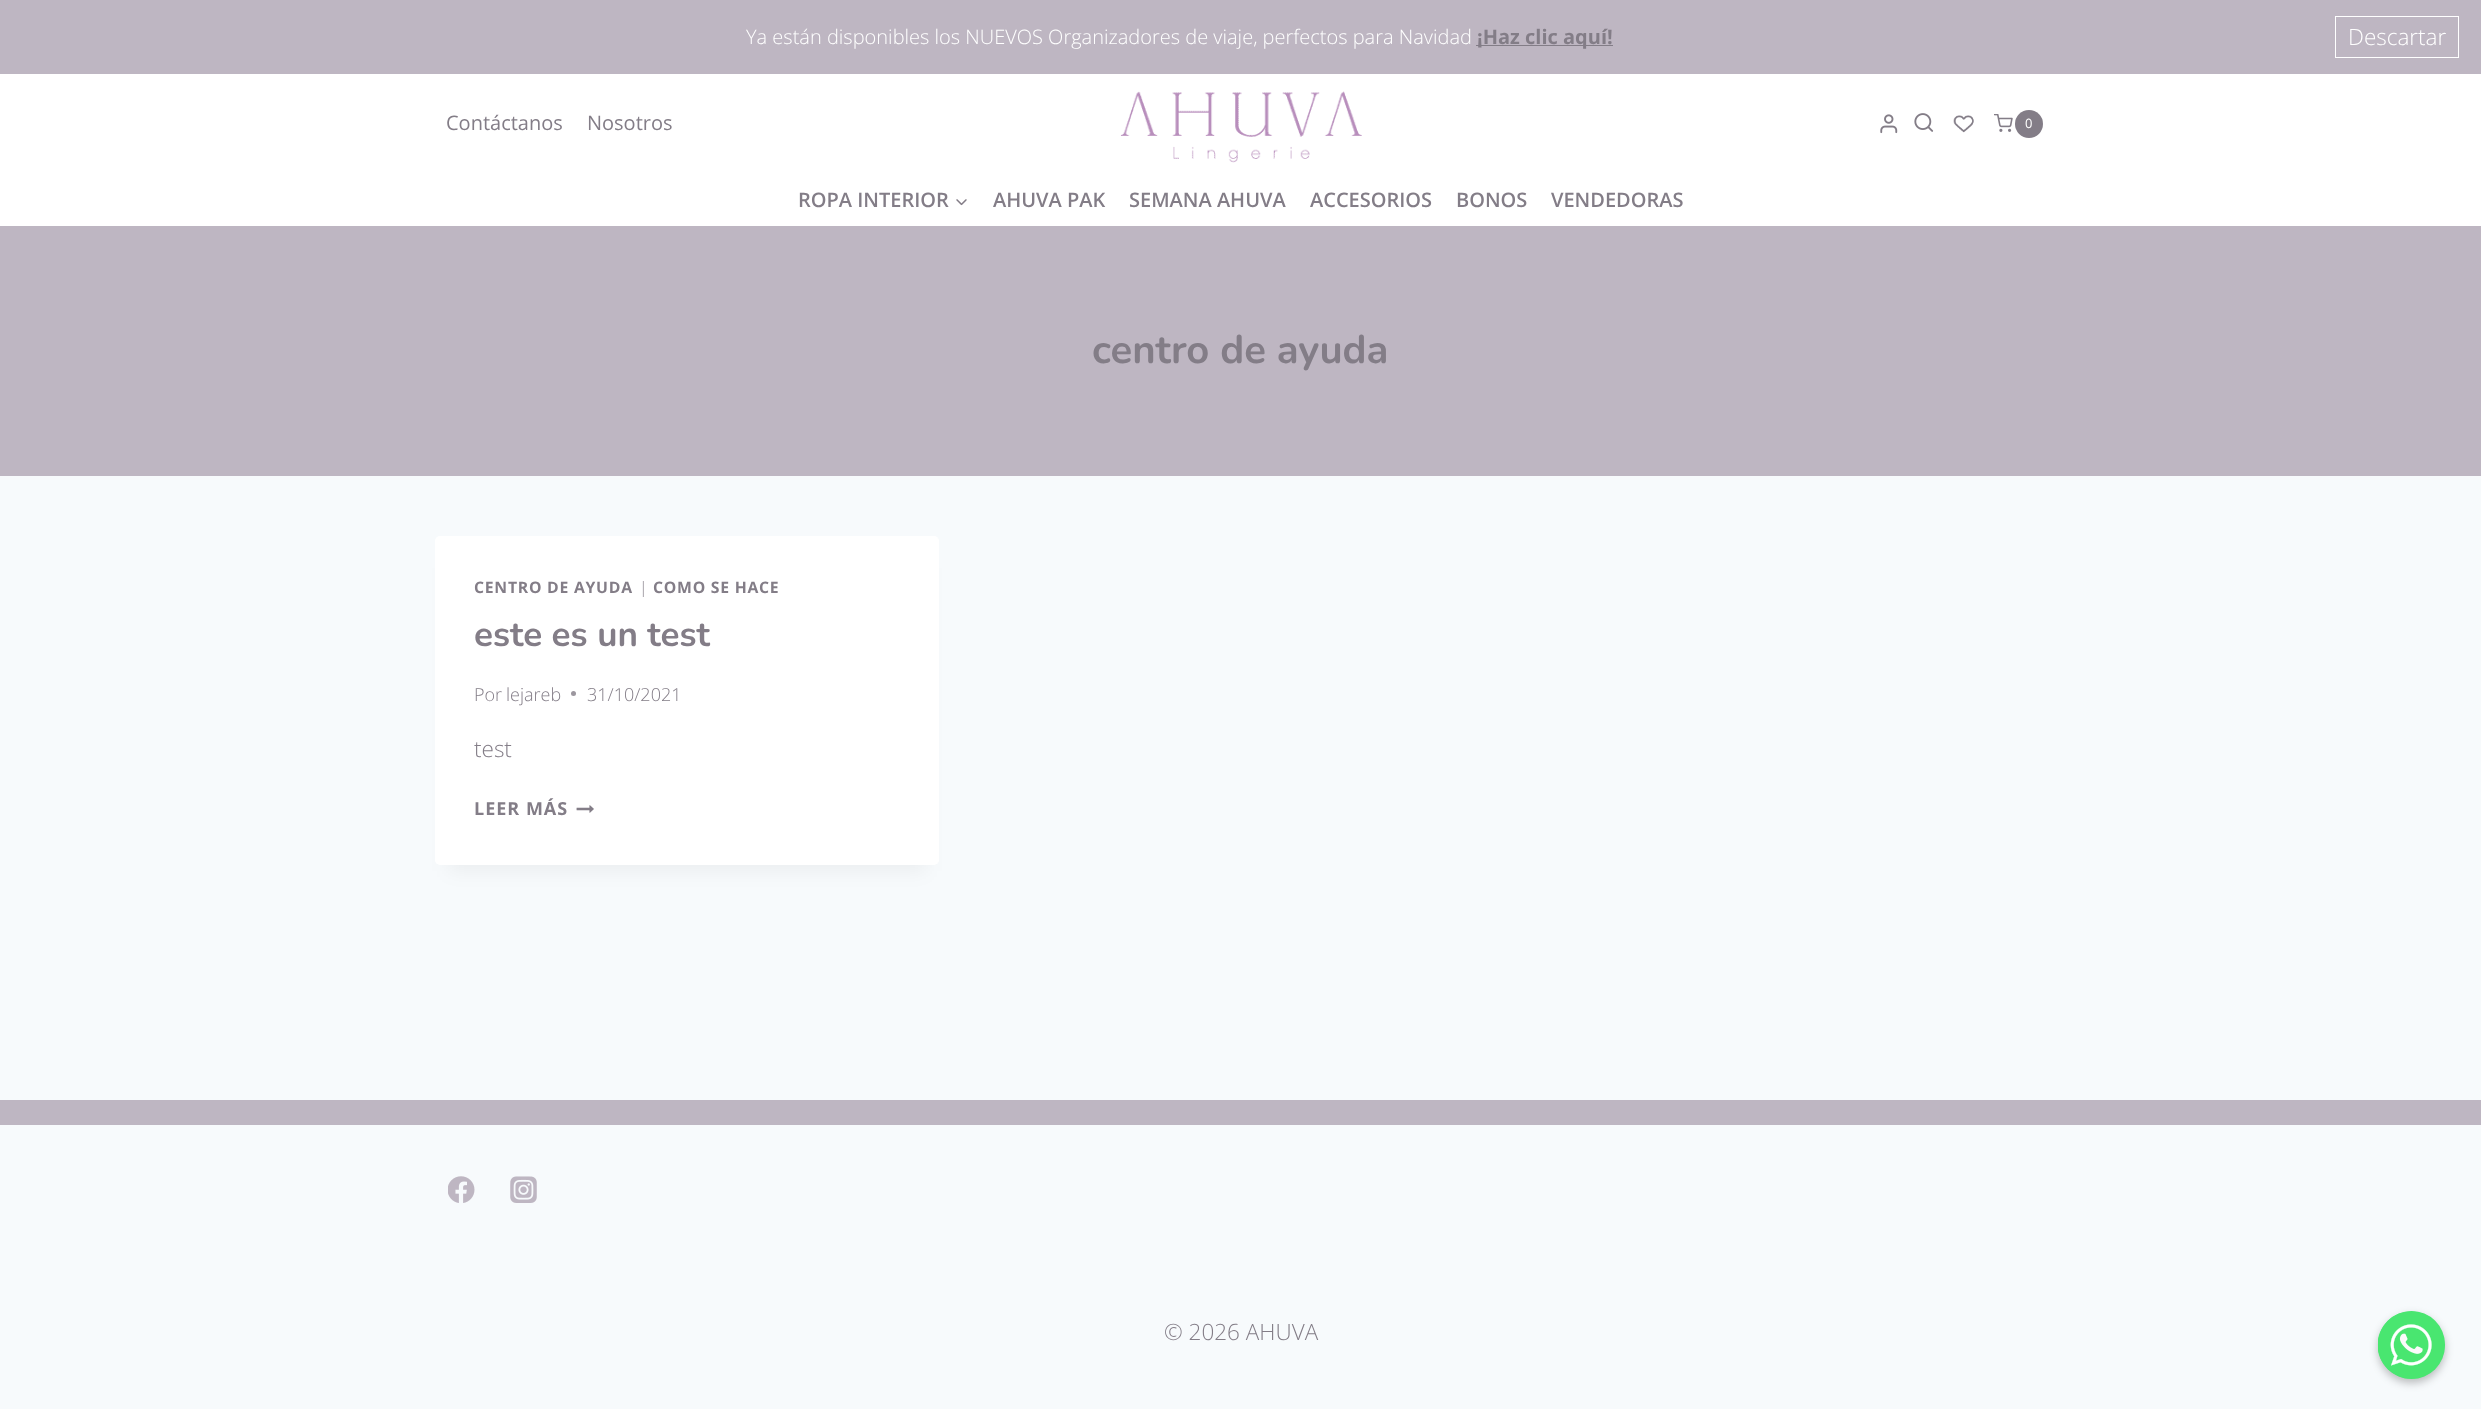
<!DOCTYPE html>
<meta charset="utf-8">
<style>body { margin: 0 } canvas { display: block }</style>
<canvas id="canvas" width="2481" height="1409"></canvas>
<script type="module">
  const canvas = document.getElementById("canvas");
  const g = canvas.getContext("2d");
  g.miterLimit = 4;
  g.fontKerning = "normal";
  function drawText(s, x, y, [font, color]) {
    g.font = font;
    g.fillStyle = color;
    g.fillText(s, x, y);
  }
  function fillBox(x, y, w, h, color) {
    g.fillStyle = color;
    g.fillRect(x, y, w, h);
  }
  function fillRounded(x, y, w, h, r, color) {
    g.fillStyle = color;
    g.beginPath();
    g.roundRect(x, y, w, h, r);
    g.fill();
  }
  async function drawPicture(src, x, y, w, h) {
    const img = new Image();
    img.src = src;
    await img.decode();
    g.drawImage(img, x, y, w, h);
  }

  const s1 = ["300 20px Open Sans", "#FFFFFF"];
  const s2 = ["bold 20px Open Sans", "#837D87"];
  const s3 = ["300 22.5px Open Sans", "#FFFFFF"];
  const s4 = ["20px Open Sans", "#837D87"];
  const s5 = ["13px Open Sans", "#FFFFFF"];
  const s6 = ["600 20px Open Sans", "#837D87"];
  const s7 = ["200 40px Nunito", "#837D87"];
  const s8 = ["bold 15.75px Open Sans", "#837D87"];
  const s9 = ["300 15.75px Open Sans", "#837D87"];
  const s10 = ["200 35px Nunito", "#837D87"];
  const s11 = ["300 18px Open Sans", "#837D87"];
  const s12 = ["300 22.5px Open Sans", "#837D87"];
  const s13 = ["bold 18px Open Sans", "#837D87"];

  fillBox(0, 0, 2481, 1409, "#F7FAFC");
  fillBox(0, 0, 2481, 74, "#BEB6C2");
  drawText("Ya están disponibles los NUEVOS Organizadores de viaje, perfectos para Navidad", 746, 44, s1);
  fillBox(1476, 45, 137, 1, "#837D87");
  drawText("¡Haz clic aquí!", 1477, 44, s2);
  g.strokeStyle = "#FFFFFF";
  g.strokeRect(2335.5, 16.5, 123, 41);
  drawText("Descartar", 2348, 45, s3);
  fillBox(0, 74, 2481, 152, "#FFFFFF");
  drawText("Contáctanos", 446, 130, s4);
  drawText("Nosotros", 587, 130, s4);
  await drawPicture("pic1.png", 1120, 91, 242, 72);
  await drawPicture("pic2.png", 1880, 114, 18, 20);
  await drawPicture("pic3.png", 1914, 113, 20, 19);
  await drawPicture("pic4.png", 1953, 115, 21, 18);
  await drawPicture("pic5.png", 1994, 114, 19, 18);
  g.beginPath();
  g.arc(2029, 124, 14, 0, Math.PI * 2);
  g.fill();
  drawText("0", 2025, 128, s5);
  drawText("ROPA INTERIOR", 798, 207, s6);
  await drawPicture("pic6.png", 956, 199, 11, 7);
  drawText("AHUVA PAK", 993, 207, s6);
  drawText("SEMANA AHUVA", 1129, 207, s6);
  drawText("ACCESORIOS", 1310, 207, s6);
  drawText("BONOS", 1456, 207, s6);
  drawText("VENDEDORAS", 1551, 207, s6);
  fillBox(0, 226, 2481, 250, "#BEB6C2");
  drawText("centro de ayuda", 1092, 363, s7);
  g.fillStyle = "rgba(0, 0, 0, 0.05)";
  g.filter = "blur(9.5px)";
  g.beginPath();
  g.rect(448, 568, 478, 303);
  g.fill();
  g.filter = "none";
  fillRounded(435, 536, 504, 329, 5, "#FFFFFF");
  g.letterSpacing = "0.75px";
  drawText("CENTRO DE AYUDA", 474, 593, s8);
  drawText("|", 639, 593, s9);
  drawText("COMO SE HACE", 653, 593, s8);
  g.letterSpacing = "0px";
  drawText("este es un test", 474, 646, s10);
  drawText("Por", 474, 701, s11);
  drawText("lejareb", 506, 701, s11);
  g.fillStyle = "#9C979F";
  g.beginPath();
  g.arc(573.5, 693.5, 2.5, 0, Math.PI * 2);
  g.fill();
  drawText("31/10/2021", 587, 701, s11);
  drawText("test", 474, 757, s12);
  g.letterSpacing = "1px";
  drawText("LEER MÁS", 474, 815, s13);
  await drawPicture("pic7.png", 576, 805, 18, 8);
  fillBox(0, 1100, 2481, 25, "#BEB6C2");
  await drawPicture("pic8.png", 448, 1176, 27, 27);
  await drawPicture("pic9.png", 510, 1176, 27, 27);
  g.letterSpacing = "0px";
  drawText("© 2026 AHUVA", 1164, 1340, s12);
  g.fillStyle = "rgba(0, 0, 0, 0.25)";
  g.filter = "blur(4px)";
  g.beginPath();
  g.roundRect(2378, 1315, 67, 68, 33.5);
  g.fill();
  g.filter = "none";
  fillRounded(2378, 1311, 67, 68, 33.5, "#49E670");
  await drawPicture("pic10.png", 2378, 1311, 67, 68);
</script>
